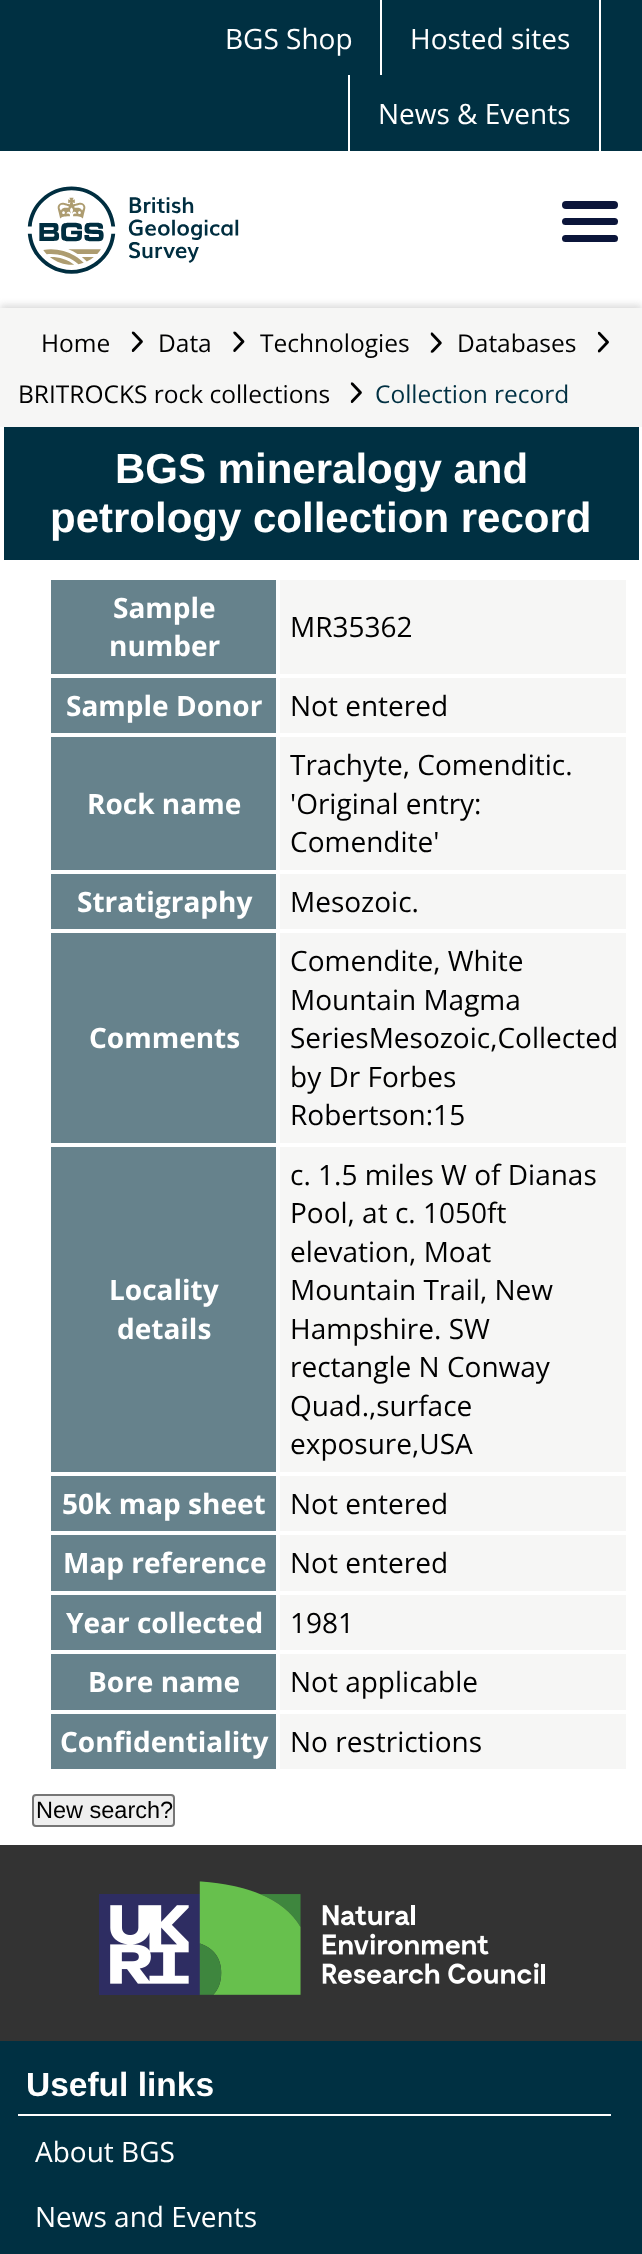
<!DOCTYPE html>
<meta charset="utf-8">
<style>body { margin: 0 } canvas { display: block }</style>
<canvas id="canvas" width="642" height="2254"></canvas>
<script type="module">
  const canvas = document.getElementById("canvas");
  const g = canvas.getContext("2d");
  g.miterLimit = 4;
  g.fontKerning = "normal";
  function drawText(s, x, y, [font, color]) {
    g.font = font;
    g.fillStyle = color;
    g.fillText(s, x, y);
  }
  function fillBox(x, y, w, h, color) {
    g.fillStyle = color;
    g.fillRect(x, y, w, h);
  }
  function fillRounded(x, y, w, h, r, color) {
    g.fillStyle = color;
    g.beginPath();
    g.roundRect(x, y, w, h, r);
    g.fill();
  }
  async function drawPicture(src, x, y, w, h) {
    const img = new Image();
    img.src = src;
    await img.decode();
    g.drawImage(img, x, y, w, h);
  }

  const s1 = ["28px Open Sans", "#FFFFFF"];
  const s2 = ["24.5px Open Sans", "#000000"];
  const s3 = ["24.5px Open Sans", "#003042"];
  const s4 = ["bold 42px Liberation Sans", "#FFFFFF"];
  const s5 = ["bold 28px Open Sans", "#FFFFFF"];
  const s6 = ["28px Open Sans", "#000000"];
  const s7 = ["23.5px Liberation Sans", "#000000"];
  const s8 = ["bold 33.5px Liberation Sans", "#FFFFFF"];

  fillBox(0, 0, 642, 2254, "#FFFFFF");
  fillBox(0, 0, 642, 151, "#003042");
  fillBox(380, 0, 2, 75, "#FFFFFF");
  drawText("BGS Shop", 225, 49, s1);
  fillBox(599, 0, 2, 151, "#FFFFFF");
  drawText("Hosted sites", 410, 49, s1);
  fillBox(348, 75, 2, 76, "#FFFFFF");
  drawText("News & Events", 378, 124, s1);
  await drawPicture("pic1.png", 27, 186, 212, 88);
  fillRounded(562, 201, 56, 8, 4, "#0B153A");
  fillRounded(562, 218, 56, 7, 3.5, "#0B153A");
  fillRounded(562, 235, 56, 7, 3.5, "#0B153A");
  g.fillStyle = "rgba(183, 183, 183, 0.5)";
  g.filter = "blur(3.5px)";
  g.beginPath();
  g.rect(0, 305, 642, 119);
  g.fill();
  g.filter = "none";
  fillBox(0, 308, 642, 119, "#F6F6F5");
  drawText("Home", 41, 352, s2);
  await drawPicture("pic2.png", 131, 331, 12, 21);
  drawText("Data", 158, 352, s2);
  await drawPicture("pic3.png", 233, 331, 12, 21);
  drawText("Technologies", 260, 352, s2);
  await drawPicture("pic4.png", 430, 332, 12, 21);
  drawText("Databases", 457, 352, s2);
  await drawPicture("pic5.png", 597, 331, 12, 22);
  drawText("BRITROCKS rock collections", 18, 403, s2);
  await drawPicture("pic6.png", 350, 382, 12, 21);
  drawText("Collection record", 375, 403, s3);
  fillBox(0, 427, 642, 2, "#FFFFFF");
  fillBox(4, 427, 635, 133, "#003042");
  drawText("BGS mineralogy and", 115, 483, s4);
  drawText("petrology collection record", 50, 532, s4);
  fillBox(51, 580, 225, 94, "#66828C");
  drawText("Sample", 113, 618, s5);
  drawText("number", 109, 656, s5);
  fillBox(280, 580, 346, 94, "#F6F6F5");
  drawText("MR35362", 290, 637, s6);
  fillBox(51, 678, 225, 55, "#66828C");
  drawText("Sample Donor", 66, 716, s5);
  fillBox(280, 678, 346, 55, "#F6F6F5");
  drawText("Not entered", 290, 716, s6);
  fillBox(51, 737, 225, 133, "#66828C");
  drawText("Rock name", 87, 814, s5);
  fillBox(280, 737, 346, 133, "#F6F6F5");
  drawText("Trachyte, Comenditic.", 290, 775, s6);
  drawText("'Original entry:", 290, 814, s6);
  drawText("Comendite'", 290, 852, s6);
  fillBox(51, 874, 225, 55, "#66828C");
  drawText("Stratigraphy", 77, 912, s5);
  fillBox(280, 874, 346, 55, "#F6F6F5");
  drawText("Mesozoic.", 290, 912, s6);
  fillBox(51, 933, 225, 210, "#66828C");
  drawText("Comments", 89, 1048, s5);
  fillBox(280, 933, 346, 210, "#F6F6F5");
  drawText("Comendite, White", 290, 971, s6);
  drawText("Mountain Magma", 290, 1010, s6);
  drawText("SeriesMesozoic,Collected", 290, 1048, s6);
  drawText("by Dr Forbes", 290, 1087, s6);
  drawText("Robertson:15", 290, 1125, s6);
  fillBox(51, 1147, 225, 325, "#66828C");
  drawText("Locality", 109, 1300, s5);
  drawText("details", 117, 1339, s5);
  fillBox(280, 1147, 346, 325, "#F6F6F5");
  drawText("c. 1.5 miles W of Dianas", 290, 1185, s6);
  drawText("Pool, at c. 1050ft", 290, 1223, s6);
  drawText("elevation, Moat", 290, 1262, s6);
  drawText("Mountain Trail, New", 290, 1300, s6);
  drawText("Hampshire. SW", 290, 1339, s6);
  drawText("rectangle N Conway", 290, 1377, s6);
  drawText("Quad.,surface", 290, 1416, s6);
  drawText("exposure,USA", 290, 1454, s6);
  fillBox(51, 1476, 225, 55, "#66828C");
  drawText("50k map sheet", 62, 1514, s5);
  fillBox(280, 1476, 346, 55, "#F6F6F5");
  drawText("Not entered", 290, 1514, s6);
  fillBox(51, 1535, 225, 56, "#66828C");
  drawText("Map reference", 63, 1573, s5);
  fillBox(280, 1535, 346, 56, "#F6F6F5");
  drawText("Not entered", 290, 1573, s6);
  fillBox(51, 1595, 225, 55, "#66828C");
  drawText("Year collected", 66, 1633, s5);
  fillBox(280, 1595, 346, 55, "#F6F6F5");
  drawText("1981", 290, 1633, s6);
  fillBox(51, 1654, 225, 56, "#66828C");
  drawText("Bore name", 88, 1692, s5);
  fillBox(280, 1654, 346, 56, "#F6F6F5");
  drawText("Not applicable", 290, 1692, s6);
  fillBox(51, 1714, 225, 55, "#66828C");
  drawText("Confidentiality", 60, 1752, s5);
  fillBox(280, 1714, 346, 55, "#F6F6F5");
  drawText("No restrictions", 290, 1752, s6);
  g.fillStyle = "#EFEFEF";
  g.beginPath();
  g.roundRect(33, 1795, 141, 31, 3);
  g.fill();
  g.strokeStyle = "#767676";
  g.lineWidth = 2;
  g.stroke();
  drawText("New search?", 36, 1818, s7);
  fillBox(0, 2041, 642, 213, "#003042");
  fillBox(0, 1845, 642, 196, "#333333");
  await drawPicture("pic7.png", 99, 1881, 446, 114);
  fillBox(18, 2114, 593, 2, "#FFFFFF");
  drawText("Useful links", 26, 2096, s8);
  drawText("About BGS", 35, 2162, s1);
  drawText("News and Events", 35, 2227, s1);
</script>
